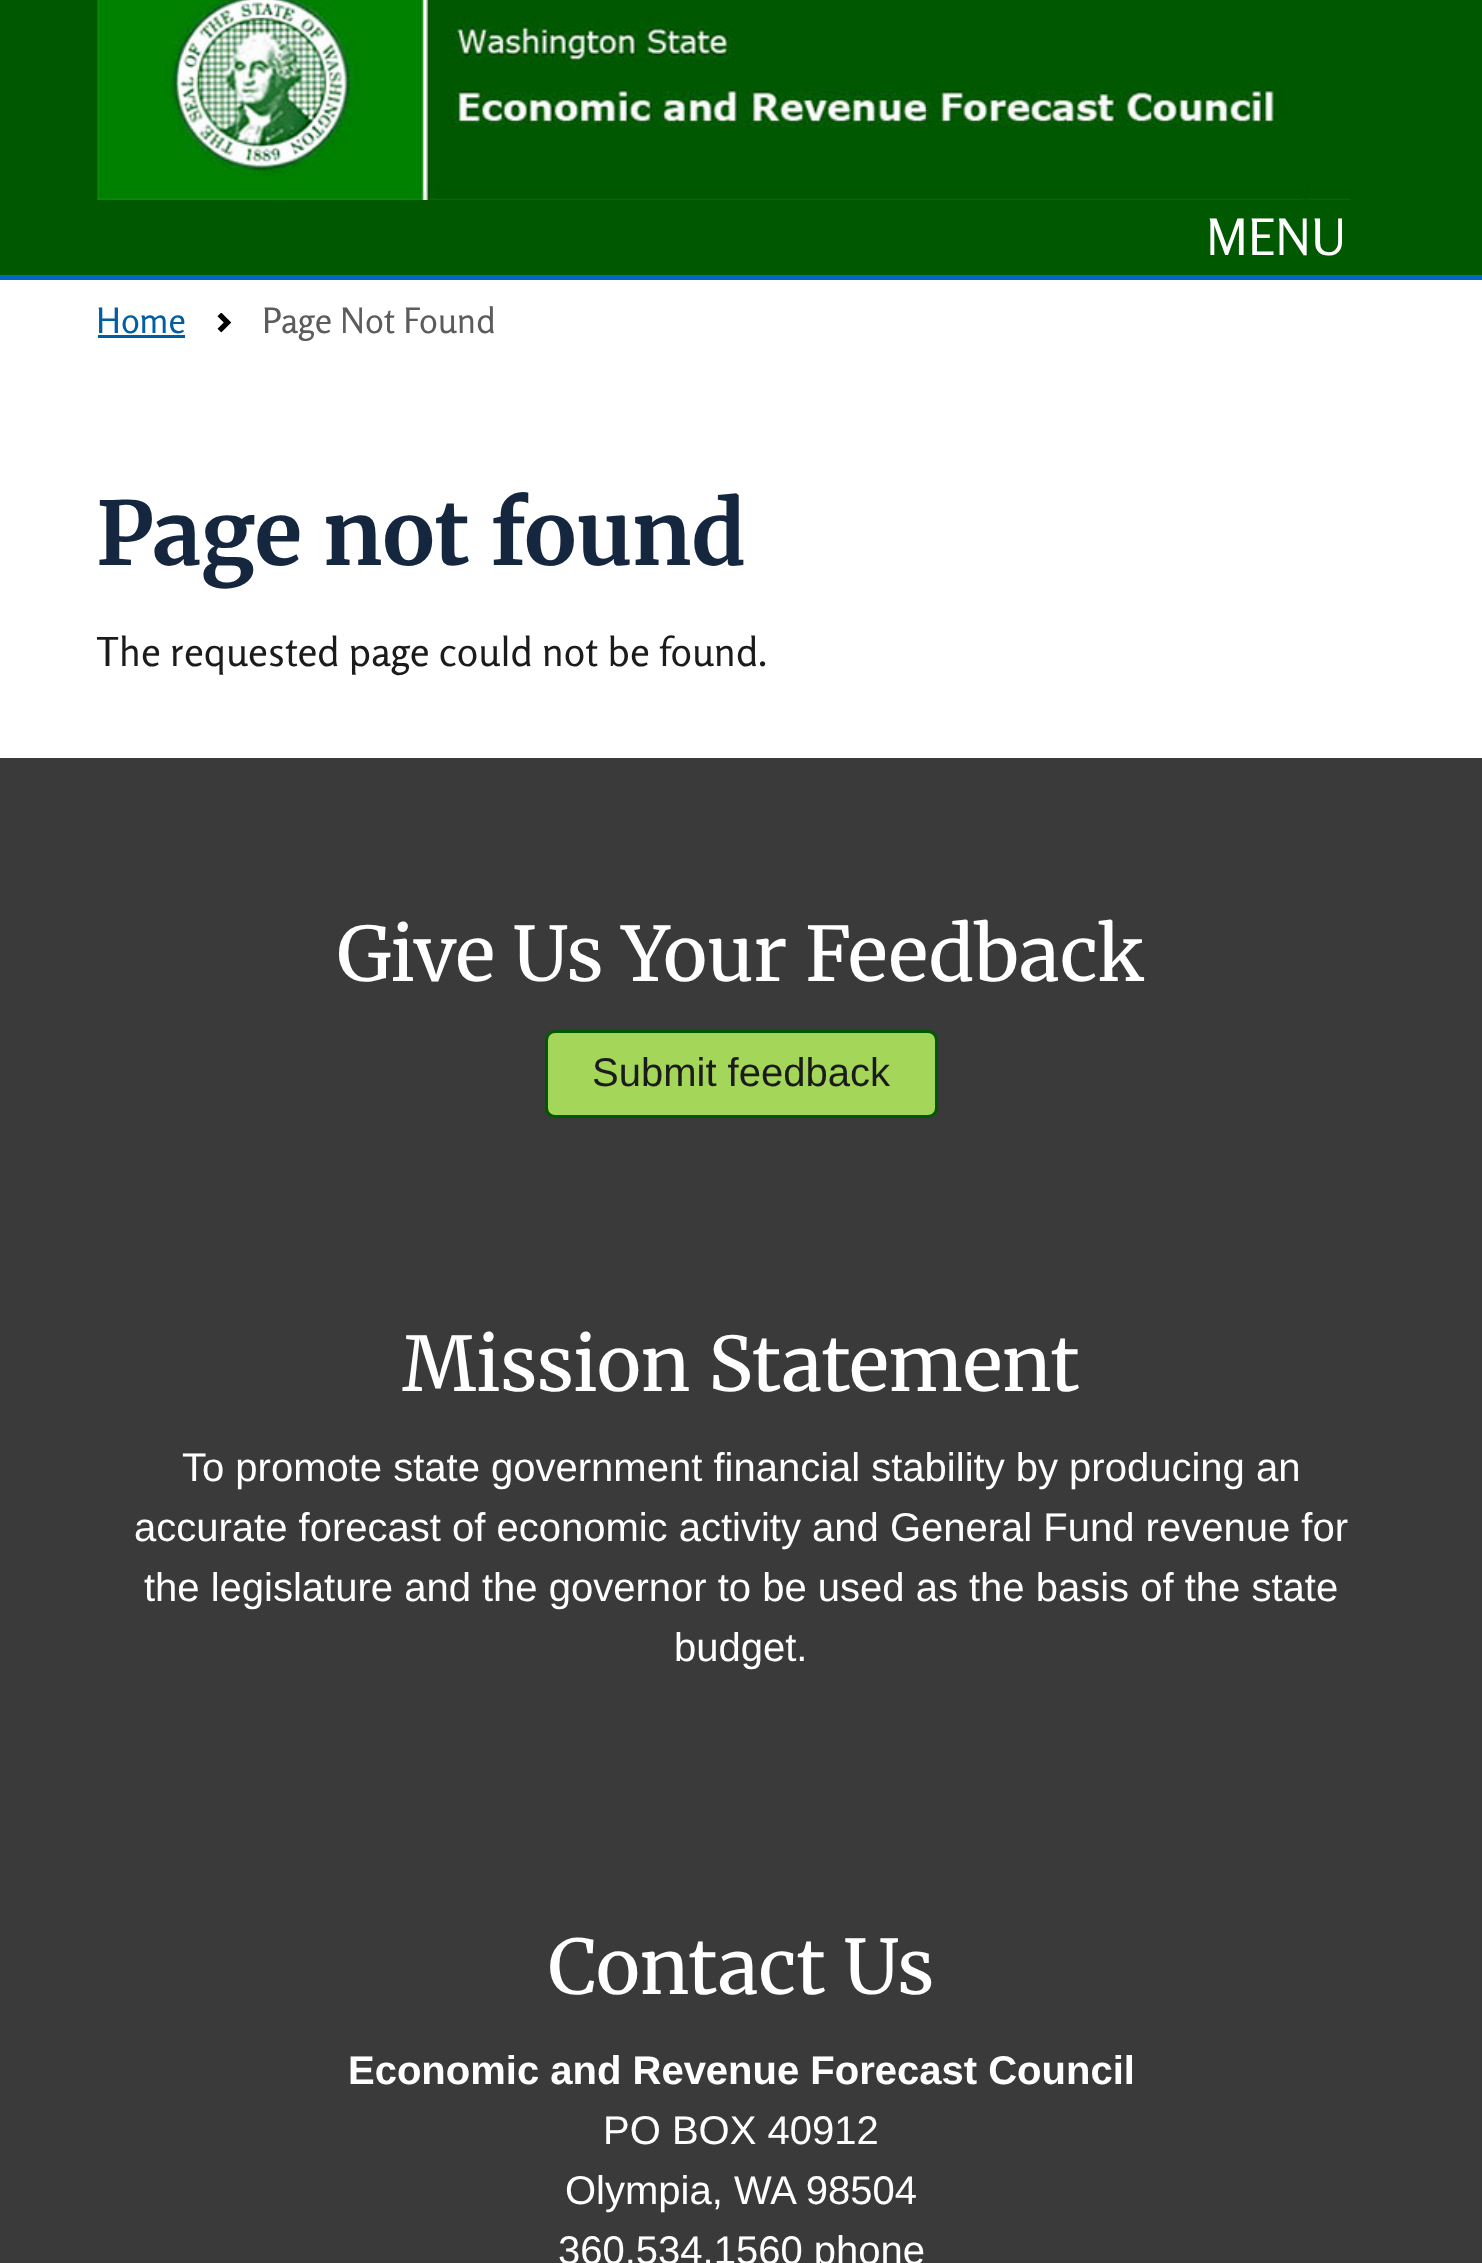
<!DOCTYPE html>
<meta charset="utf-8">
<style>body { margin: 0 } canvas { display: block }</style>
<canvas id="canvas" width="1482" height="2263"></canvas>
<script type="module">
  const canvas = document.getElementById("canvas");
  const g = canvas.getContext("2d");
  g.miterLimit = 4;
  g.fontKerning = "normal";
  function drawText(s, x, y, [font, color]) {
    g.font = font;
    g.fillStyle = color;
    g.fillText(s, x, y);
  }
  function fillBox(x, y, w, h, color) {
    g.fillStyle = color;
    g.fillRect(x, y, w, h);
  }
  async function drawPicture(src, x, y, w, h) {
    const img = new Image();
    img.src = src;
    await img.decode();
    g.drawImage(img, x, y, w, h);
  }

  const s1 = ["50px Rosario", "#FFFFFF"];
  const s2 = ["35px Rosario", "#005EA2"];
  const s3 = ["35px Rosario", "#5C5C5C"];
  const s4 = ["bold 87.5px Merriweather", "#15273E"];
  const s5 = ["40px Rosario", "#1B1B1B"];
  const s6 = ["75px Merriweather", "#FFFFFF"];
  const s7 = ["40px Liberation Sans", "#1B1B1B"];
  const s8 = ["40px Liberation Sans", "#FFFFFF"];
  const s9 = ["bold 40px Liberation Sans", "#FFFFFF"];

  fillBox(0, 0, 1482, 2263, "#FFFFFF");
  fillBox(0, 0, 1482, 275, "#005800");
  await drawPicture("pic1.png", 97, 0, 1253, 200);
  drawText("MENU", 1206, 255, s1);
  fillBox(0, 275, 1482, 5, "#0368C0");
  drawText("Home", 96, 333, s2);
  fillBox(98, 335, 87, 3, "#005EA2");
  await drawPicture("pic2.png", 217, 313, 15, 20);
  drawText("Page Not Found", 262, 333, s3);
  drawText("Page not found", 96, 565, s4);
  drawText("The requested page could not be found.", 96, 666, s5);
  fillBox(0, 758, 1482, 1505, "#3A3A3A");
  drawText("Give Us Your Feedback", 337, 981, s6);
  g.fillStyle = "#A4D659";
  g.beginPath();
  g.roundRect(546.5, 1031.5, 390, 85, 8.5);
  g.fill();
  g.strokeStyle = "#005800";
  g.lineWidth = 3;
  g.stroke();
  drawText("Submit feedback", 592, 1086, s7);
  drawText("Mission Statement", 402, 1391, s6);
  drawText("To promote state government financial stability by producing an", 182, 1481, s8);
  drawText("accurate forecast of economic activity and General Fund revenue for", 134, 1541, s8);
  drawText("the legislature and the governor to be used as the basis of the state", 144, 1601, s8);
  drawText("budget.", 674, 1661, s8);
  drawText("Contact Us", 548, 1994, s6);
  drawText("Economic and Revenue Forecast Council", 348, 2084, s9);
  drawText("PO BOX 40912", 603, 2144, s8);
  drawText("Olympia, WA 98504", 565, 2204, s8);
  drawText("360.534.1560 phone", 558, 2264, s8);
</script>
